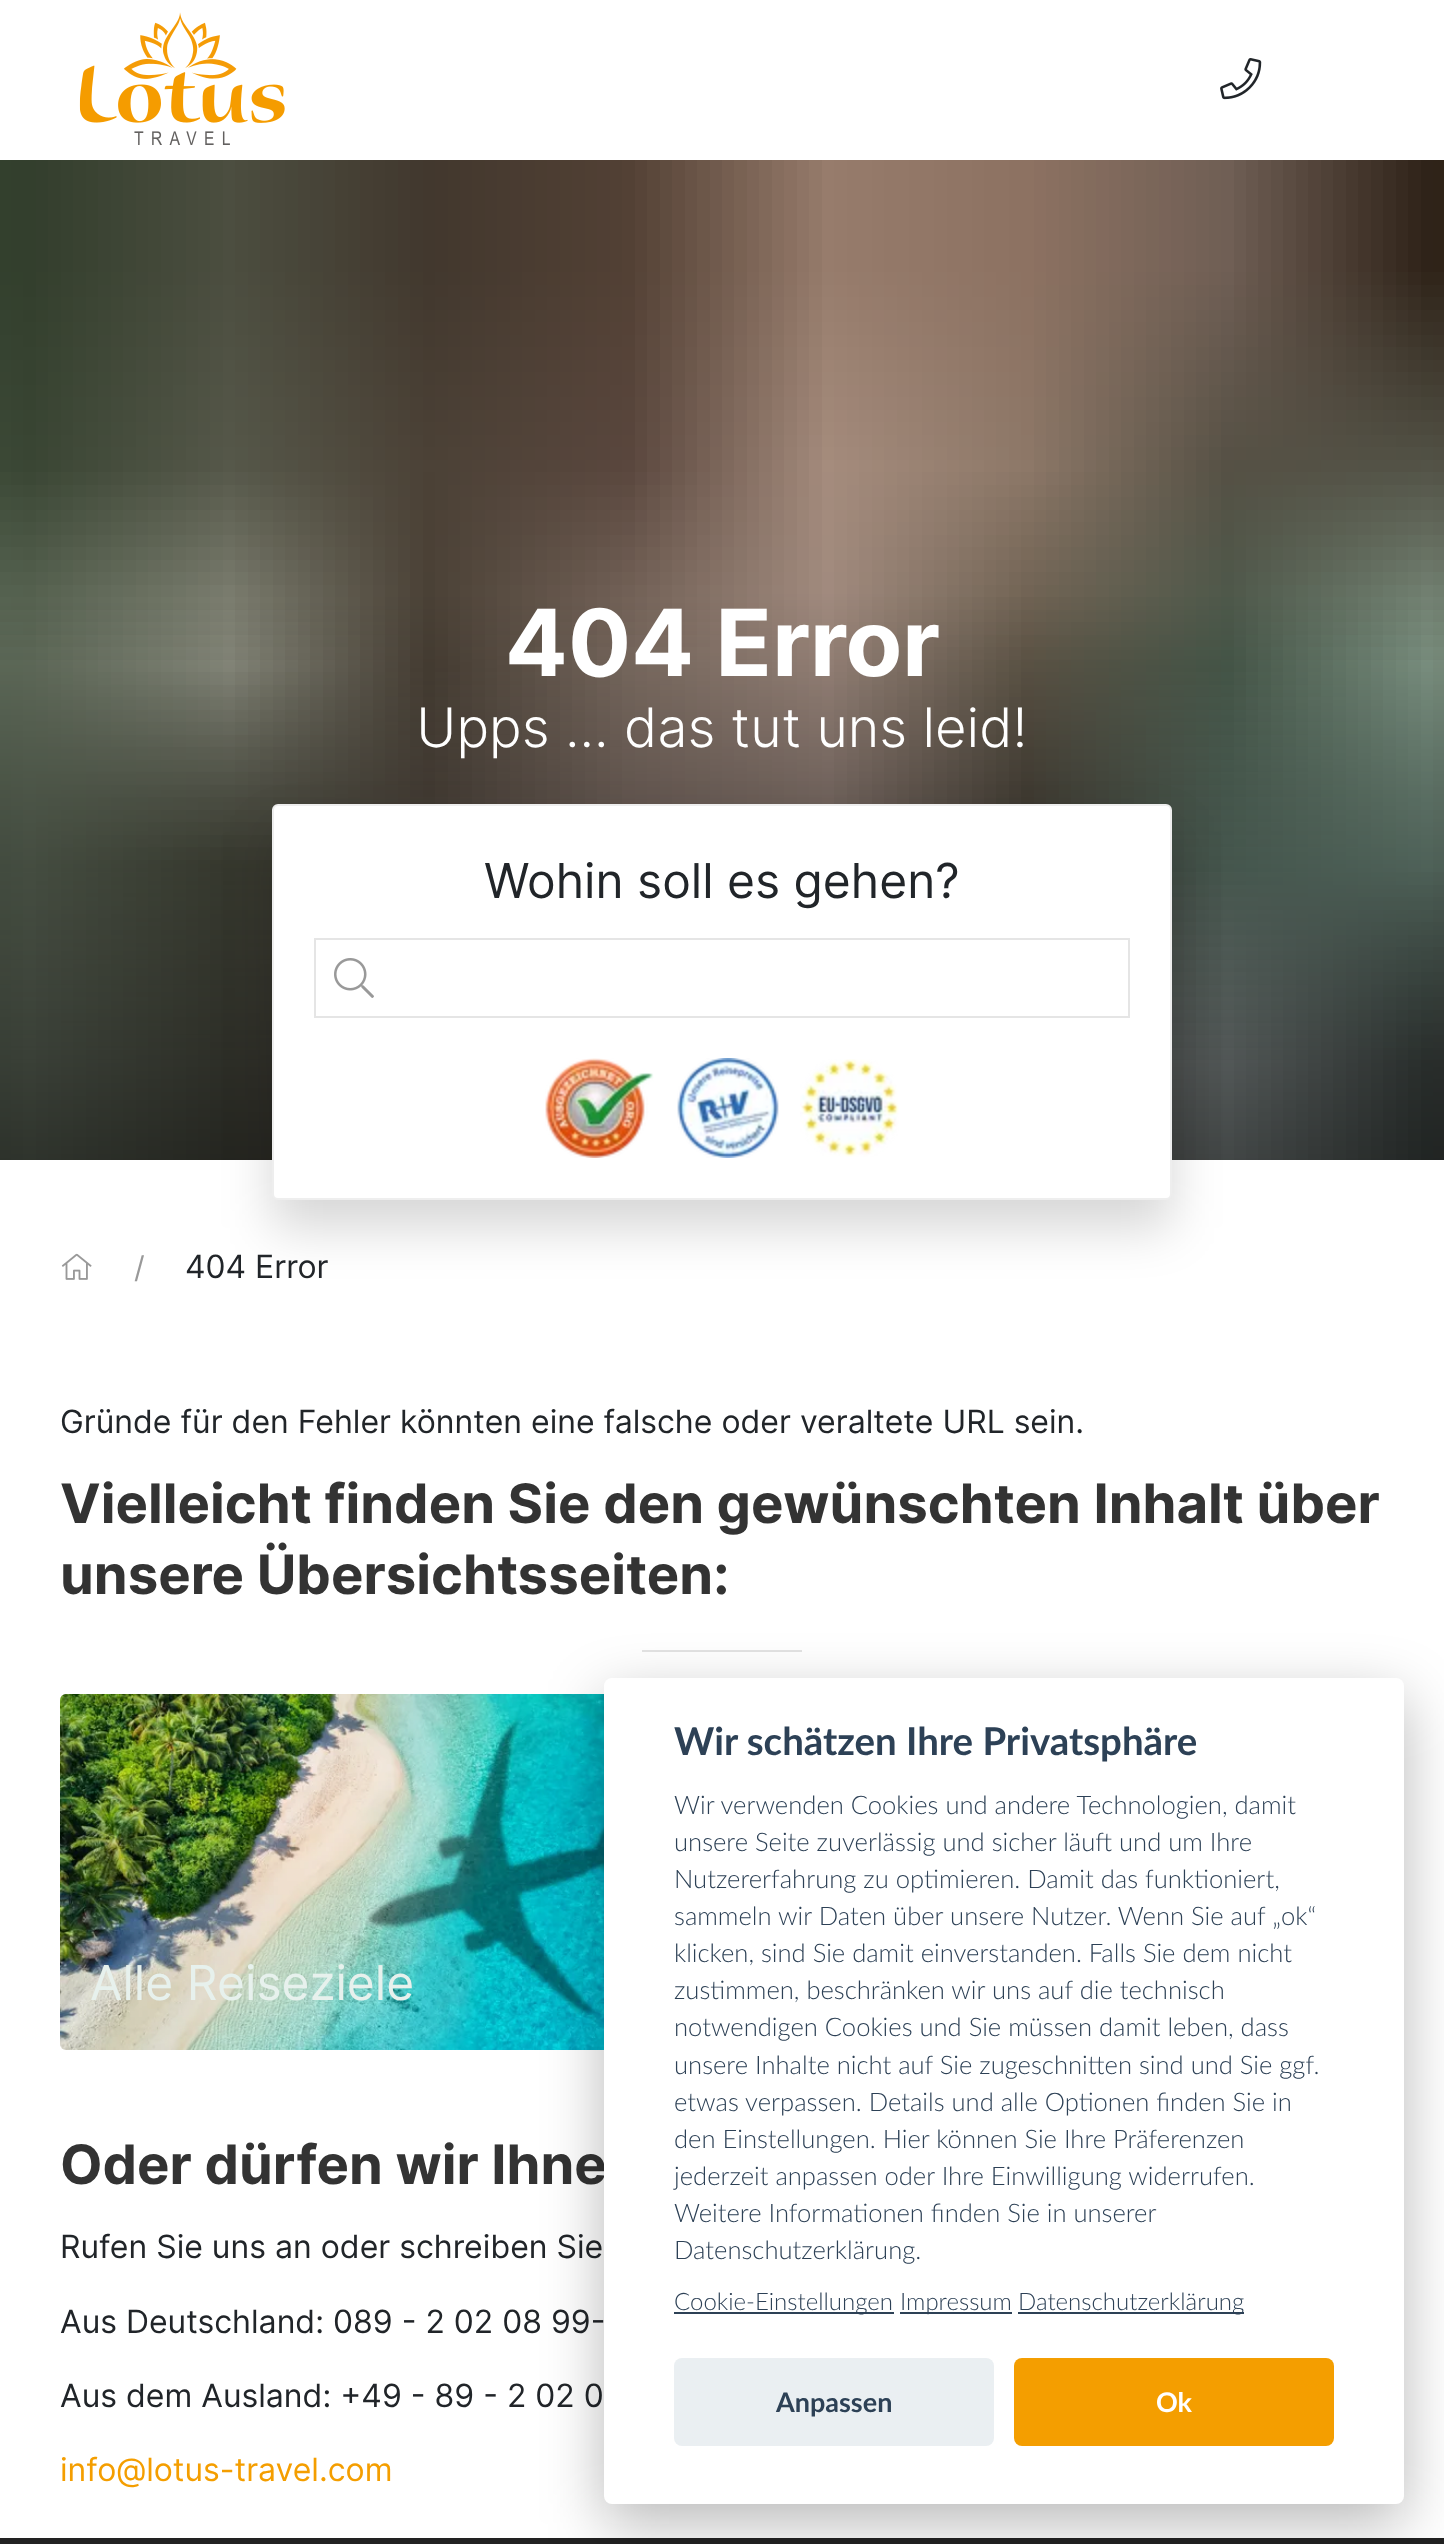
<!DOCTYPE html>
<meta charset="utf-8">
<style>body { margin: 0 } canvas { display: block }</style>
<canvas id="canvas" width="1444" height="2544"></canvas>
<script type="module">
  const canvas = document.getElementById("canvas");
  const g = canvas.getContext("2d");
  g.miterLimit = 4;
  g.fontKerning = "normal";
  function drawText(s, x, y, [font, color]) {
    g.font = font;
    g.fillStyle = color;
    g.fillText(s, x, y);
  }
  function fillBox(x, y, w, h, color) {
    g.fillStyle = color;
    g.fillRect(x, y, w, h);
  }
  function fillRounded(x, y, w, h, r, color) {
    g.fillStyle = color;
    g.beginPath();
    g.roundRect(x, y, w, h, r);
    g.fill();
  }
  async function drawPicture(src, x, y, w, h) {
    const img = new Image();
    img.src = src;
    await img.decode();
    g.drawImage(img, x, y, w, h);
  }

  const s1 = ["bold 92.5px Inter", "#FFFFFF"];
  const s2 = ["300 54.4px Inter", "#FFFFFF"];
  const s3 = ["48px Inter", "#212529"];
  const s4 = ["30px Inter", "#999999"];
  const s5 = ["32px Inter", "#212529"];
  const s6 = ["bold 54.4px Inter", "#333333"];
  const s7 = ["48px Inter", "#E7F1ED"];
  const s8 = ["32px Inter", "#F49E00"];
  const s9 = ["bold 38.4px Lato", "#2D4156"];
  const s10 = ["300 25.6px Lato", "#2D4156"];
  const s11 = ["300 24px Lato", "#2D4156"];
  const s12 = ["bold 27px Lato", "#2D4156"];
  const s13 = ["bold 27px Lato", "#FFFFFF"];

  fillBox(0, 0, 1444, 2544, "#FFFFFF");
  await drawPicture("pic1.png", 79, 12, 206, 133);
  await drawPicture("pic2.png", 1220, 58, 42, 42);
  await drawPicture("pic3.png", 0, 160, 1444, 1000);
  drawText("404 Error", 505, 676, s1);
  drawText("Upps ... das tut uns leid!", 416, 747, s2);
  g.fillStyle = "rgba(0, 0, 0, 0.16)";
  g.filter = "blur(25px)";
  g.beginPath();
  g.roundRect(272, 832, 900, 396, 6);
  g.fill();
  g.filter = "none";
  g.fillStyle = "#FFFFFF";
  g.beginPath();
  g.roundRect(273, 805, 898, 394, 5);
  g.fill();
  g.strokeStyle = "#EEEEEE";
  g.lineWidth = 2;
  g.stroke();
  drawText("Wohin soll es gehen?", 484, 898, s3);
  g.strokeStyle = "#E5E5E5";
  g.strokeRect(315, 939, 814, 78);
  await drawPicture("pic4.png", 334, 958, 40, 40);
  await drawPicture("pic5.png", 545, 1058, 109, 100);
  await drawPicture("pic6.png", 677, 1058, 102, 100);
  await drawPicture("pic7.png", 800, 1059, 99, 98);
  await drawPicture("pic8.png", 61, 1253, 31, 27);
  drawText("/", 134, 1278, s4);
  drawText("404 Error", 185, 1278, s5);
  drawText("Gründe für den Fehler könnten eine falsche oder veraltete URL sein.", 60, 1433, s5);
  drawText("Vielleicht finden Sie den gewünschten Inhalt über", 60, 1523, s6);
  drawText("unsere Übersichtsseiten:", 60, 1594, s6);
  fillBox(642, 1650, 160, 2, "#E3E3E3");
  await drawPicture("pic9.png", 60, 1694, 544, 356);
  drawText("Alle Reiseziele", 90, 2000, s7);
  drawText("Oder dürfen wir Ihne", 60, 2184, s6);
  drawText("Rufen Sie uns an oder schreiben Sie", 60, 2258, s5);
  drawText("Aus Deutschland: 089 - 2 02 08 99-", 60, 2333, s5);
  drawText("Aus dem Ausland: +49 - 89 - 2 02 0", 60, 2407, s5);
  drawText("info@lotus-travel.com", 60, 2481, s8);
  fillBox(0, 2538, 1444, 6, "#222222");
  g.fillStyle = "rgba(2, 2, 3, 0.28)";
  g.filter = "blur(30px)";
  g.beginPath();
  g.roundRect(604, 1698, 800, 826, 8);
  g.fill();
  g.filter = "none";
  fillRounded(604, 1678, 800, 826, 8, "#FFFFFF");
  drawText("Wir schätzen Ihre Privatsphäre", 674, 1755, s9);
  drawText("Wir verwenden Cookies und andere Technologien, damit", 674, 1814, s10);
  drawText("unsere Seite zuverlässig und sicher läuft und um Ihre", 674, 1851, s10);
  drawText("Nutzererfahrung zu optimieren. Damit das funktioniert,", 674, 1888, s10);
  drawText("sammeln wir Daten über unsere Nutzer. Wenn Sie auf „ok“", 674, 1925, s10);
  drawText("klicken, sind Sie damit einverstanden. Falls Sie dem nicht", 674, 1962, s10);
  drawText("zustimmen, beschränken wir uns auf die technisch", 674, 1999, s10);
  drawText("notwendigen Cookies und Sie müssen damit leben, dass", 674, 2036, s10);
  drawText("unsere Inhalte nicht auf Sie zugeschnitten sind und Sie ggf.", 674, 2074, s10);
  drawText("etwas verpassen. Details und alle Optionen finden Sie in", 674, 2111, s10);
  drawText("den Einstellungen. Hier können Sie Ihre Präferenzen", 674, 2148, s10);
  drawText("jederzeit anpassen oder Ihre Einwilligung widerrufen.", 674, 2185, s10);
  drawText("Weitere Informationen finden Sie in unserer", 674, 2222, s10);
  drawText("Datenschutzerklärung.", 674, 2259, s10);
  fillBox(674, 2312, 220, 2, "#2D4156");
  drawText("Cookie-Einstellungen", 674, 2310, s11);
  fillBox(900, 2312, 112, 2, "#2D4156");
  drawText("Impressum", 900, 2310, s11);
  fillBox(1018, 2312, 226, 2, "#2D4156");
  drawText("Datenschutzerklärung", 1018, 2310, s11);
  fillRounded(674, 2358, 320, 88, 8, "#EAEFF2");
  drawText("Anpassen", 776, 2412, s12);
  fillRounded(1014, 2358, 320, 88, 8, "#F49E00");
  drawText("Ok", 1156, 2412, s13);
</script>
